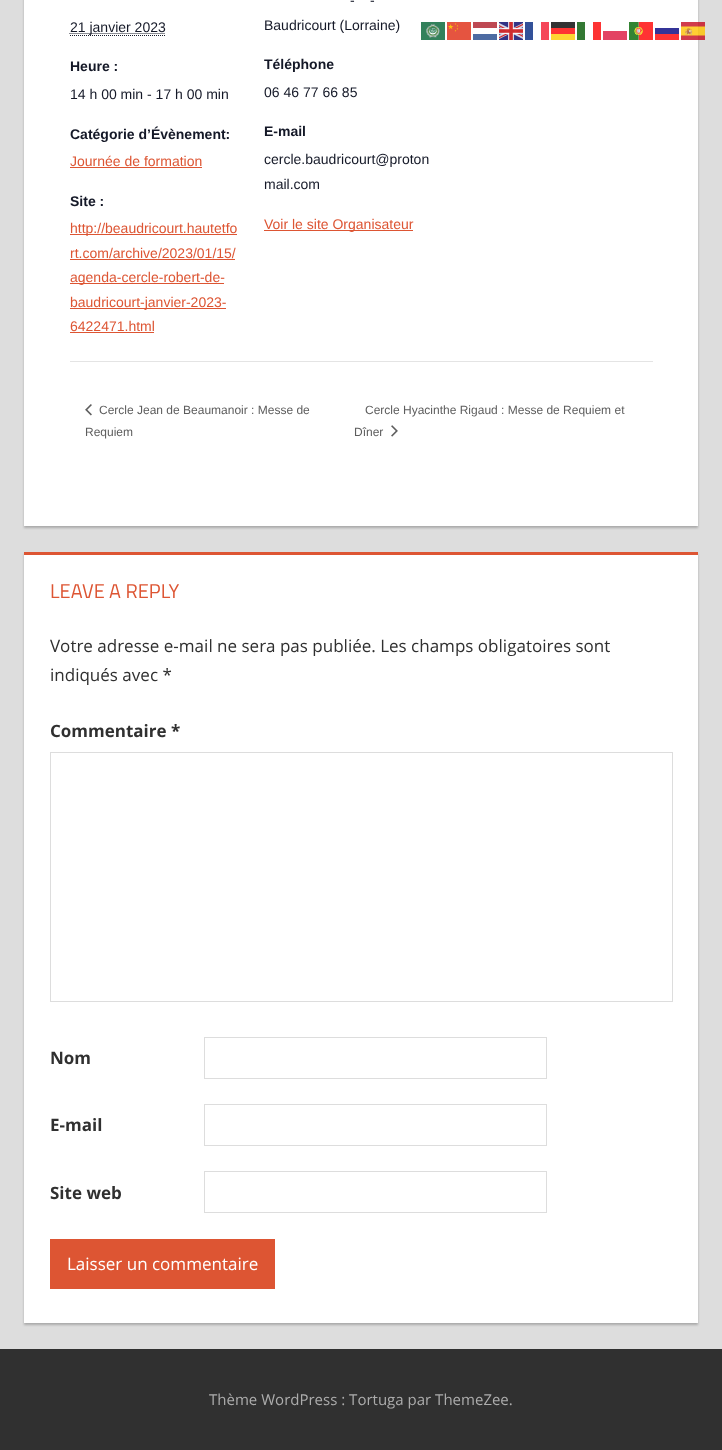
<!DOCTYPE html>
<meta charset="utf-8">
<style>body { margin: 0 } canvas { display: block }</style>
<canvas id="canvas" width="722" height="1450"></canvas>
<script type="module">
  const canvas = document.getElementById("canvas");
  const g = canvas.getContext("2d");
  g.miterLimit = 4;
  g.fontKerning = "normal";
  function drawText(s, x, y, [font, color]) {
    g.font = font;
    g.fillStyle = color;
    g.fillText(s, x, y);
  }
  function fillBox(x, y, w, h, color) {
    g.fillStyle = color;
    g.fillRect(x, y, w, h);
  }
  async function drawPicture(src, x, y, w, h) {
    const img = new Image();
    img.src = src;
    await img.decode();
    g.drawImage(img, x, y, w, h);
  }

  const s1 = ["14px Liberation Sans", "#141827"];
  const s2 = ["bold 14px Liberation Sans", "#141827"];
  const s3 = ["14px Liberation Sans", "#DD5533"];
  const s4 = ["12px Liberation Sans", "#5D5D5D"];
  const s5 = ["20px Titillium Web", "#DD5533"];
  const s6 = ["17px Open Sans", "#303030"];
  const s7 = ["bold 17px Open Sans", "#303030"];
  const s8 = ["17px Open Sans", "#FFFFFF"];
  const s9 = ["15px Open Sans", "#ACACAC"];

  fillBox(0, 0, 722, 1450, "#DDDDDD");
  g.fillStyle = "#AAAAAA";
  g.filter = "blur(1px)";
  g.beginPath();
  g.rect(24, -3, 674, 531);
  g.fill();
  g.filter = "none";
  fillBox(24, 0, 674, 526, "#FFFFFF");
  g.beginPath();
  g.moveTo(69.5, 33.5);
  g.lineTo(165, 33.5);
  g.strokeStyle = "#141827";
  g.setLineDash([1, 1]);
  g.stroke();
  drawText("21 janvier 2023", 70, 32, s1);
  g.beginPath();
  g.moveTo(70, 35.5);
  g.lineTo(165, 35.5);
  g.stroke();
  drawText("Heure :", 70, 71, s2);
  drawText("14 h 00 min - 17 h 00 min", 70, 99, s1);
  drawText("Catégorie d’Évènement:", 70, 139, s2);
  drawText("Journée de formation", 70, 166, s3);
  fillBox(70, 167, 132, 1, "#DD5533");
  drawText("Site :", 70, 206, s2);
  fillBox(70, 234, 167, 1, "#DD5533");
  drawText("http://beaudricourt.hautetfo", 70, 233, s3);
  drawText("rt.com/archive/2023/01/15/", 70, 258, s3);
  fillBox(70, 259, 165, 1, "#DD5533");
  fillBox(70, 283, 154, 1, "#DD5533");
  drawText("agenda-cercle-robert-de-", 70, 282, s3);
  fillBox(70, 308, 156, 1, "#DD5533");
  drawText("baudricourt-janvier-2023-", 70, 307, s3);
  drawText("6422471.html", 70, 331, s3);
  fillBox(70, 332, 84, 1, "#DD5533");
  drawText("-", 350, 5, s1);
  drawText("-", 370, 5, s1);
  drawText("Baudricourt (Lorraine)", 264, 30, s1);
  drawText("Téléphone", 264, 69, s2);
  drawText("06 46 77 66 85", 264, 97, s1);
  drawText("E-mail", 264, 136, s2);
  drawText("cercle.baudricourt@proton", 264, 164, s1);
  drawText("mail.com", 264, 189, s1);
  fillBox(264, 230, 149, 1, "#DD5533");
  drawText("Voir le site Organisateur", 264, 229, s3);
  fillBox(70, 361, 583, 1, "#E4E4E4");
  await drawPicture("pic1.png", 85, 404, 7, 12);
  drawText("Cercle Jean de Beaumanoir : Messe de", 99, 414, s4);
  drawText("Requiem", 85, 436, s4);
  drawText("Cercle Hyacinthe Rigaud : Messe de Requiem et", 365, 414, s4);
  drawText("Dîner", 354, 436, s4);
  await drawPicture("pic2.png", 391, 425, 7, 12);
  g.fillStyle = "#AAAAAA";
  g.filter = "blur(1px)";
  g.beginPath();
  g.rect(24, 554, 674, 771);
  g.fill();
  g.filter = "none";
  fillBox(24, 555, 674, 768, "#FFFFFF");
  fillBox(24, 552, 674, 3, "#DD5533");
  drawText("LEAVE A REPLY", 50, 598, s5);
  drawText("Votre adresse e-mail ne sera pas publiée. Les champs obligatoires sont", 50, 652, s6);
  drawText("indiqués avec *", 50, 681, s6);
  drawText("Commentaire *", 50, 737, s7);
  g.strokeStyle = "#DDDDDD";
  g.setLineDash([]);
  g.strokeRect(50.5, 752.5, 622, 249);
  drawText("Nom", 50, 1064, s7);
  g.strokeRect(204.5, 1037.5, 342, 41);
  drawText("E-mail", 50, 1131, s7);
  g.strokeRect(204.5, 1104.5, 342, 41);
  drawText("Site web", 50, 1199, s7);
  g.strokeRect(204.5, 1171.5, 342, 41);
  fillBox(50, 1239, 225, 50, "#DD5533");
  drawText("Laisser un commentaire", 67, 1270, s8);
  fillBox(0, 1349, 722, 101, "#303030");
  drawText("Thème WordPress : Tortuga par ThemeZee.", 209, 1405, s9);
  await drawPicture("pic3.png", 421, 22, 24, 18);
  await drawPicture("pic4.png", 447, 22, 24, 18);
  fillBox(473, 22, 24, 6, "#BE4953");
  await drawPicture("pic5.png", 499, 22, 24, 18);
  fillBox(525, 22, 8, 18, "#335199");
  fillBox(541, 22, 8, 18, "#F54659");
  fillBox(551, 22, 24, 6, "#333333");
  fillBox(577, 22, 8, 18, "#337933");
  fillBox(593, 22, 8, 18, "#FD3333");
  await drawPicture("pic6.png", 629, 22, 24, 18);
  await drawPicture("pic7.png", 681, 22, 24, 18);
  fillBox(473, 34, 24, 6, "#4D6BA2");
  fillBox(551, 28, 24, 6, "#FF3333");
  fillBox(603, 31, 24, 9, "#E34363");
  fillBox(655, 28, 24, 6, "#343498");
  fillBox(551, 34, 24, 6, "#FFD633");
  fillBox(655, 34, 24, 6, "#FE3434");
</script>
